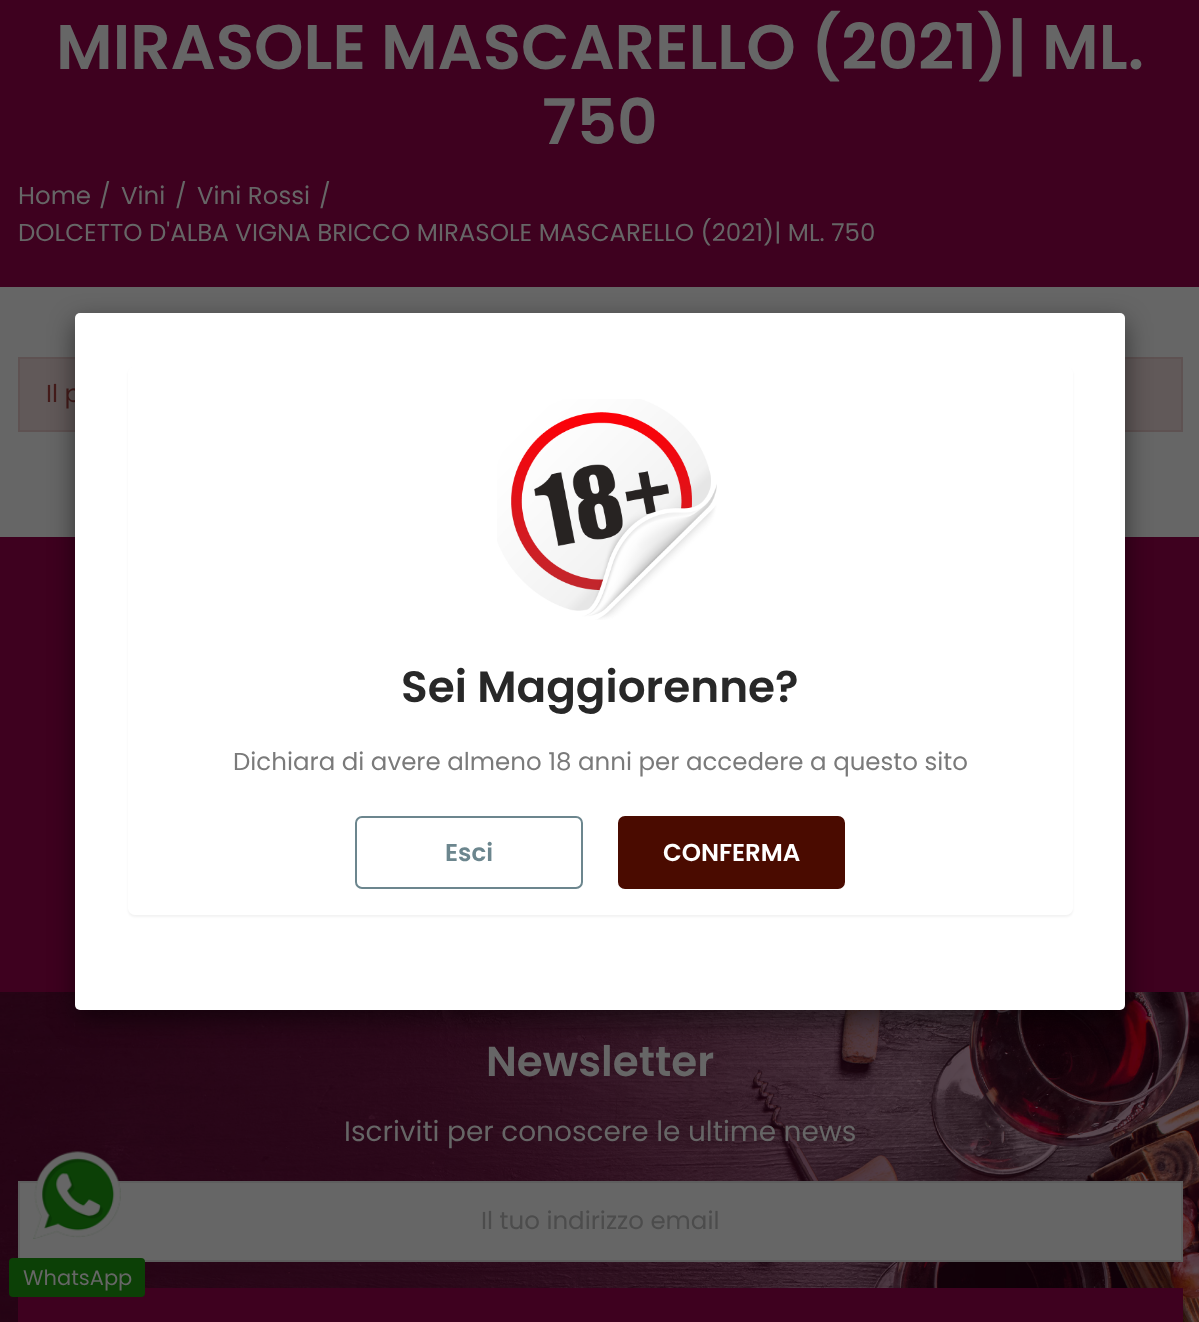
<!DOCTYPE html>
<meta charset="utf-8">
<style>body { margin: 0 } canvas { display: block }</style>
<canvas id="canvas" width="1199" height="1322"></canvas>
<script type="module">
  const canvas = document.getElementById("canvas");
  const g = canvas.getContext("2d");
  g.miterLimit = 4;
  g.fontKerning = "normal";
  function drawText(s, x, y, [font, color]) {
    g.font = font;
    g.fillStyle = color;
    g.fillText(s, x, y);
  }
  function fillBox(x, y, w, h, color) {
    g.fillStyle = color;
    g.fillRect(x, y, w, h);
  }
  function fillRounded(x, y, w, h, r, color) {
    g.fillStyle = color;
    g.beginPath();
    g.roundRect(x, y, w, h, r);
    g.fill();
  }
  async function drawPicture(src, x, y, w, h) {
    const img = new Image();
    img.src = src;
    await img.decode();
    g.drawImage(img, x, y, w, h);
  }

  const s1 = ["600 63px Poppins", "#666666"];
  const s2 = ["24.5px Poppins", "#666666"];
  const s3 = ["24.5px Poppins", "#441B1A"];
  const s4 = ["600 43.75px Poppins", "#282828"];
  const s5 = ["24.5px Poppins", "#7A7A7A"];
  const s6 = ["600 24.5px Poppins", "#6C868E"];
  const s7 = ["600 24.5px Poppins", "#FFFFFF"];
  const s8 = ["21px Poppins", "#666666"];
  const s9 = ["600 42px Poppins", "#666666"];
  const s10 = ["28px Poppins", "#666666"];
  const s11 = ["24.5px Poppins", "#4C4C4C"];

  fillBox(0, 0, 1199, 1322, "#666666");
  fillBox(0, 0, 1199, 287, "#3E011F");
  drawText("MIRASOLE MASCARELLO (2021)| ML.", 56, 69, s1);
  drawText("750", 542, 144, s1);
  drawText("Home", 18, 204, s2);
  drawText("/", 99, 204, s2);
  drawText("Vini", 121, 204, s2);
  drawText("/", 175, 204, s2);
  drawText("Vini Rossi", 197, 204, s2);
  drawText("/", 319, 204, s2);
  drawText("DOLCETTO D'ALBA VIGNA BRICCO MIRASOLE MASCARELLO (2021)| ML. 750", 18, 241, s2);
  g.fillStyle = "#615959";
  g.beginPath();
  g.rect(19, 358, 1163, 73);
  g.fill();
  g.strokeStyle = "#5E5252";
  g.lineWidth = 2;
  g.stroke();
  drawText("Il p", 46, 402, s3);
  fillBox(0, 537, 1199, 455, "#3E011F");
  await drawPicture("pic3.png", 0, 992, 1199, 330);
  g.fillStyle = "rgba(0, 0, 0, 0.5)";
  g.filter = "blur(13px)";
  g.beginPath();
  g.roundRect(75, 322, 1050, 697, 5);
  g.fill();
  g.filter = "none";
  fillRounded(75, 313, 1050, 697, 5, "#FFFFFF");
  g.fillStyle = "rgba(0, 0, 0, 0.05)";
  g.filter = "blur(1px)";
  g.beginPath();
  g.roundRect(128, 368, 945, 549, 7);
  g.fill();
  g.filter = "none";
  fillRounded(128, 366, 945, 549, 7, "#FFFFFF");
  await drawPicture("pic1.png", 497, 399, 220, 221);
  drawText("Sei Maggiorenne?", 401, 702, s4);
  drawText("Dichiara di avere almeno 18 anni per accedere a questo sito", 233, 770, s5);
  g.beginPath();
  g.roundRect(356, 817, 226, 71, 6);
  g.strokeStyle = "#6C868E";
  g.stroke();
  drawText("Esci", 445, 861, s6);
  g.fillStyle = "#4A0B00";
  g.beginPath();
  g.roundRect(619, 817, 225, 71, 6);
  g.fill();
  g.strokeStyle = "#4A0B00";
  g.stroke();
  drawText("CONFERMA", 663, 861, s7);
  g.fillStyle = "#666666";
  g.beginPath();
  g.rect(19, 1182, 1163, 79);
  g.fill();
  g.strokeStyle = "#5E5E5E";
  g.stroke();
  await drawPicture("pic2.png", 33, 1151, 88, 88);
  fillBox(18, 1288, 1165, 34, "#3E011F");
  fillRounded(9, 1258, 136, 39, 4, "#0C4006");
  drawText("WhatsApp", 23, 1285, s8);
  drawText("Newsletter", 486, 1076, s9);
  drawText("Iscriviti per conoscere le ultime news", 344, 1141, s10);
  drawText("Il tuo indirizzo email", 481, 1229, s11);
</script>
